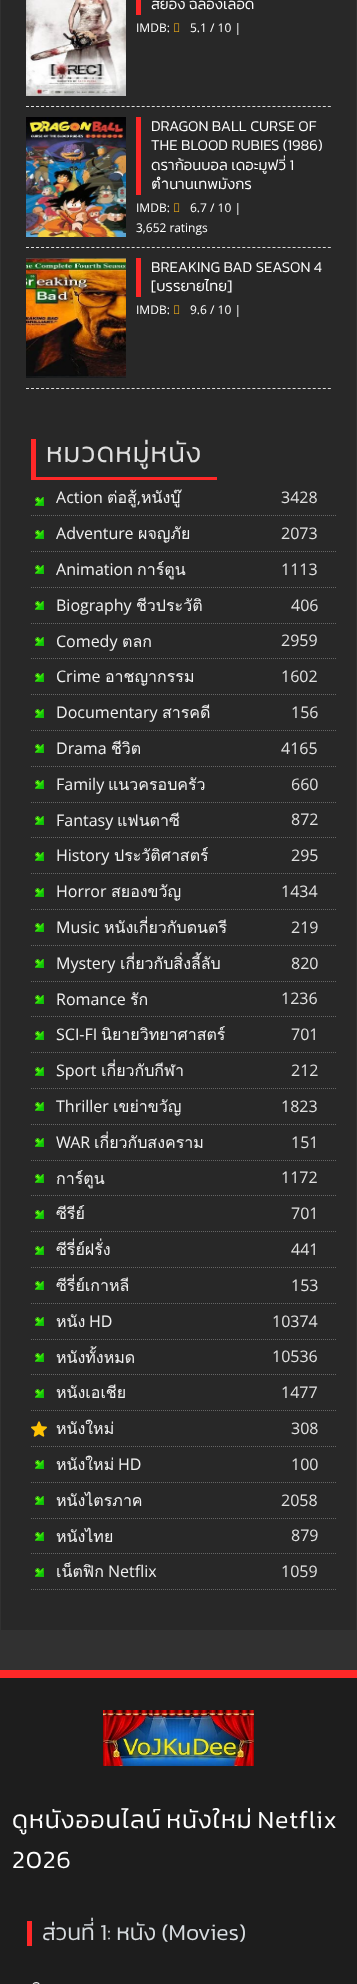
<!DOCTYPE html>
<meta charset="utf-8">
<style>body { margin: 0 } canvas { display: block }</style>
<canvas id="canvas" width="357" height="1984"></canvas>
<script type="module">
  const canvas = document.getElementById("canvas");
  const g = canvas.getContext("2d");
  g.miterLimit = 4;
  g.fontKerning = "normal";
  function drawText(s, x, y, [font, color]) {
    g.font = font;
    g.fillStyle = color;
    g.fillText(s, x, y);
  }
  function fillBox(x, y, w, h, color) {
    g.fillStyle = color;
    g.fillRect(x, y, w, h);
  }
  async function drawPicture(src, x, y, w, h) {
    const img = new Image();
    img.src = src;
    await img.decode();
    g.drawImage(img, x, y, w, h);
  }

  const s1 = ["300 15px Kanit", "#FFFFFF"];
  const s2 = ["12px Open Sans", "#FFFFFF"];
  const s3 = ["300 28px Kanit", "#E0E0E0"];
  const s4 = ["16px Open Sans", "#F1F1F1"];
  const s5 = ["16px Loma", "#F1F1F1"];
  const s6 = ["16px Open Sans", "#E0E0E0"];
  const s7 = ["300 25px Kanit", "#FFFFFF"];
  const s8 = ["300 23px Kanit", "#D7DCE0"];

  fillBox(0, 0, 357, 1984, "#1D1D1D");
  fillBox(0, 0, 357, 1670, "#313131");
  fillBox(1, 0, 355, 1630, "#282828");
  g.beginPath();
  g.moveTo(26, 106.5);
  g.lineTo(331, 106.5);
  g.strokeStyle = "#DFDFDF";
  g.setLineDash([3, 2.03]);
  g.stroke();
  await drawPicture("pic1.png", 26, 0, 100, 96);
  fillBox(136, 0, 5, 15, "#FF2828");
  drawText("สยอง ฉลองเลือด", 151, 9, s1);
  drawText("IMDB:", 136, 32, s2);
  await drawPicture("pic2.png", 174, 23, 6, 9);
  drawText("5.1 / 10 |", 190, 32, s2);
  g.beginPath();
  g.moveTo(26, 247.5);
  g.lineTo(331, 247.5);
  g.stroke();
  await drawPicture("pic3.png", 26, 117, 100, 120);
  fillBox(136, 117, 5, 78, "#FF2828");
  drawText("DRAGON BALL CURSE OF", 151, 131, s1);
  drawText("THE BLOOD RUBIES (1986)", 151, 150, s1);
  drawText("ดราก้อนบอล เดอะมูฟวี่ 1", 151, 170, s1);
  drawText("ตำนานเทพมังกร", 151, 189, s1);
  drawText("IMDB:", 136, 212, s2);
  await drawPicture("pic2.png", 174, 203, 6, 9);
  drawText("6.7 / 10 |", 190, 212, s2);
  drawText("3,652 ratings", 136, 232, s2);
  g.beginPath();
  g.moveTo(26, 388.5);
  g.lineTo(331, 388.5);
  g.stroke();
  await drawPicture("pic4.png", 26, 258, 100, 120);
  fillBox(136, 258, 5, 39, "#FF2828");
  drawText("BREAKING BAD SEASON 4", 151, 272, s1);
  drawText("[บรรยายไทย]", 151, 291, s1);
  drawText("IMDB:", 136, 314, s2);
  await drawPicture("pic2.png", 174, 305, 6, 9);
  drawText("9.6 / 10 |", 190, 314, s2);
  fillBox(31, 477, 186, 3, "#FF2828");
  fillBox(31, 439, 5, 41, "#FF2828");
  g.letterSpacing = "1px";
  drawText("หมวดหมู่หนัง", 46, 462, s3);
  await drawPicture("pic5.png", 35, 497, 9, 9);
  g.beginPath();
  g.moveTo(31, 515.5);
  g.lineTo(336, 515.5);
  g.strokeStyle = "#666666";
  g.setLineDash([1, 1]);
  g.stroke();
  g.letterSpacing = "0px";
  drawText("Action", 56, 503, s4);
  drawText("ต่อสู้", 107, 503, s5);
  drawText(",", 137, 503, s4);
  drawText("หนังบู๊", 141, 503, s5);
  drawText("3428", 281, 503, s6);
  await drawPicture("pic5.png", 35, 530, 9, 9);
  g.beginPath();
  g.moveTo(31, 551.5);
  g.lineTo(336, 551.5);
  g.stroke();
  drawText("Adventure", 56, 539, s4);
  drawText("ผจญภัย", 138, 539, s5);
  drawText("2073", 281, 539, s6);
  await drawPicture("pic5.png", 35, 565, 9, 9);
  g.beginPath();
  g.moveTo(31, 587.5);
  g.lineTo(336, 587.5);
  g.stroke();
  drawText("Animation", 56, 575, s4);
  drawText("การ์ตูน", 137, 575, s5);
  drawText("1113", 281, 575, s6);
  await drawPicture("pic5.png", 35, 601, 9, 9);
  g.beginPath();
  g.moveTo(31, 623.5);
  g.lineTo(336, 623.5);
  g.stroke();
  drawText("Biography", 56, 611, s4);
  drawText("ชีวประวัติ", 136, 611, s5);
  drawText("406", 291, 611, s6);
  await drawPicture("pic5.png", 35, 637, 9, 9);
  g.beginPath();
  g.moveTo(31, 658.5);
  g.lineTo(336, 658.5);
  g.stroke();
  drawText("Comedy", 56, 647, s4);
  drawText("ตลก", 122, 647, s5);
  drawText("2959", 281, 646, s6);
  await drawPicture("pic5.png", 35, 673, 9, 9);
  g.beginPath();
  g.moveTo(31, 694.5);
  g.lineTo(336, 694.5);
  g.stroke();
  drawText("Crime", 56, 682, s4);
  drawText("อาชญากรรม", 105, 682, s5);
  drawText("1602", 281, 682, s6);
  await drawPicture("pic5.png", 35, 709, 9, 9);
  g.beginPath();
  g.moveTo(31, 730.5);
  g.lineTo(336, 730.5);
  g.stroke();
  drawText("Documentary", 56, 718, s4);
  drawText("สารคดี", 162, 718, s5);
  drawText("156", 291, 718, s6);
  await drawPicture("pic5.png", 35, 744, 9, 9);
  g.beginPath();
  g.moveTo(31, 766.5);
  g.lineTo(336, 766.5);
  g.stroke();
  drawText("Drama", 56, 754, s4);
  drawText("ชีวิต", 111, 754, s5);
  drawText("4165", 281, 754, s6);
  await drawPicture("pic5.png", 35, 780, 9, 9);
  g.beginPath();
  g.moveTo(31, 802.5);
  g.lineTo(336, 802.5);
  g.stroke();
  drawText("Family", 56, 790, s4);
  drawText("แนวครอบครัว", 108, 790, s5);
  drawText("660", 291, 790, s6);
  await drawPicture("pic5.png", 35, 816, 9, 9);
  g.beginPath();
  g.moveTo(31, 837.5);
  g.lineTo(336, 837.5);
  g.stroke();
  drawText("Fantasy", 56, 826, s4);
  drawText("แฟนตาซี", 117, 826, s5);
  drawText("872", 291, 825, s6);
  await drawPicture("pic5.png", 35, 852, 9, 9);
  g.beginPath();
  g.moveTo(31, 873.5);
  g.lineTo(336, 873.5);
  g.stroke();
  drawText("History", 56, 861, s4);
  drawText("ประวัติศาสตร์", 114, 861, s5);
  drawText("295", 291, 861, s6);
  await drawPicture("pic5.png", 35, 888, 9, 9);
  g.beginPath();
  g.moveTo(31, 909.5);
  g.lineTo(336, 909.5);
  g.stroke();
  drawText("Horror", 56, 897, s4);
  drawText("สยองขวัญ", 111, 897, s5);
  drawText("1434", 281, 897, s6);
  await drawPicture("pic5.png", 35, 923, 9, 9);
  g.beginPath();
  g.moveTo(31, 945.5);
  g.lineTo(336, 945.5);
  g.stroke();
  drawText("Music", 56, 933, s4);
  drawText("หนังเกี่ยวกับดนตรี", 104, 933, s5);
  drawText("219", 291, 933, s6);
  await drawPicture("pic5.png", 35, 959, 9, 9);
  g.beginPath();
  g.moveTo(31, 981.5);
  g.lineTo(336, 981.5);
  g.stroke();
  drawText("Mystery", 56, 969, s4);
  drawText("เกี่ยวกับสิ่งลี้ลับ", 120, 969, s5);
  drawText("820", 291, 969, s6);
  await drawPicture("pic5.png", 35, 995, 9, 9);
  g.beginPath();
  g.moveTo(31, 1016.5);
  g.lineTo(336, 1016.5);
  g.stroke();
  drawText("Romance", 56, 1005, s4);
  drawText("รัก", 130, 1005, s5);
  drawText("1236", 281, 1004, s6);
  await drawPicture("pic5.png", 35, 1031, 9, 9);
  g.beginPath();
  g.moveTo(31, 1052.5);
  g.lineTo(336, 1052.5);
  g.stroke();
  drawText("SCI-FI", 56, 1040, s4);
  drawText("นิยายวิทยาศาสตร์", 101, 1040, s5);
  drawText("701", 291, 1040, s6);
  await drawPicture("pic5.png", 35, 1067, 9, 9);
  g.beginPath();
  g.moveTo(31, 1088.5);
  g.lineTo(336, 1088.5);
  g.stroke();
  drawText("Sport", 56, 1076, s4);
  drawText("เกี่ยวกับกีฬา", 101, 1076, s5);
  drawText("212", 291, 1076, s6);
  await drawPicture("pic5.png", 35, 1102, 9, 9);
  g.beginPath();
  g.moveTo(31, 1124.5);
  g.lineTo(336, 1124.5);
  g.stroke();
  drawText("Thriller", 56, 1112, s4);
  drawText("เขย่าขวัญ", 113, 1112, s5);
  drawText("1823", 281, 1112, s6);
  await drawPicture("pic5.png", 35, 1138, 9, 9);
  g.beginPath();
  g.moveTo(31, 1160.5);
  g.lineTo(336, 1160.5);
  g.stroke();
  drawText("WAR", 56, 1148, s4);
  drawText("เกี่ยวกับสงคราม", 94, 1148, s5);
  drawText("151", 291, 1148, s6);
  await drawPicture("pic5.png", 35, 1174, 9, 9);
  g.beginPath();
  g.moveTo(31, 1195.5);
  g.lineTo(336, 1195.5);
  g.stroke();
  drawText("การ์ตูน", 56, 1184, s5);
  drawText("1172", 281, 1183, s6);
  await drawPicture("pic5.png", 35, 1210, 9, 9);
  g.beginPath();
  g.moveTo(31, 1231.5);
  g.lineTo(336, 1231.5);
  g.stroke();
  drawText("ซีรีย์", 56, 1219, s5);
  drawText("701", 291, 1219, s6);
  await drawPicture("pic5.png", 35, 1246, 9, 9);
  g.beginPath();
  g.moveTo(31, 1267.5);
  g.lineTo(336, 1267.5);
  g.stroke();
  drawText("ซีรี่ย์ฝรั่ง", 56, 1255, s5);
  drawText("441", 291, 1255, s6);
  await drawPicture("pic5.png", 35, 1281, 9, 9);
  g.beginPath();
  g.moveTo(31, 1303.5);
  g.lineTo(336, 1303.5);
  g.stroke();
  drawText("ซีรี่ย์เกาหลี", 56, 1291, s5);
  drawText("153", 291, 1291, s6);
  await drawPicture("pic5.png", 35, 1317, 9, 9);
  g.beginPath();
  g.moveTo(31, 1339.5);
  g.lineTo(336, 1339.5);
  g.stroke();
  drawText("หนัง", 56, 1327, s5);
  drawText("HD", 89, 1327, s4);
  drawText("10374", 272, 1327, s6);
  await drawPicture("pic5.png", 35, 1353, 9, 9);
  g.beginPath();
  g.moveTo(31, 1374.5);
  g.lineTo(336, 1374.5);
  g.stroke();
  drawText("หนังทั้งหมด", 56, 1363, s5);
  drawText("10536", 272, 1362, s6);
  await drawPicture("pic5.png", 35, 1389, 9, 9);
  g.beginPath();
  g.moveTo(31, 1410.5);
  g.lineTo(336, 1410.5);
  g.stroke();
  drawText("หนังเอเชีย", 56, 1398, s5);
  drawText("1477", 281, 1398, s6);
  await drawPicture("pic6.png", 31, 1421, 16, 16);
  g.beginPath();
  g.moveTo(31, 1446.5);
  g.lineTo(336, 1446.5);
  g.stroke();
  drawText("หนังใหม่", 56, 1434, s5);
  drawText("308", 291, 1434, s6);
  await drawPicture("pic5.png", 35, 1460, 9, 9);
  g.beginPath();
  g.moveTo(31, 1482.5);
  g.lineTo(336, 1482.5);
  g.stroke();
  drawText("หนังใหม่", 56, 1470, s5);
  drawText("HD", 118, 1470, s4);
  drawText("100", 291, 1470, s6);
  await drawPicture("pic5.png", 35, 1496, 9, 9);
  g.beginPath();
  g.moveTo(31, 1518.5);
  g.lineTo(336, 1518.5);
  g.stroke();
  drawText("หนังไตรภาค", 56, 1506, s5);
  drawText("2058", 281, 1506, s6);
  await drawPicture("pic5.png", 35, 1532, 9, 9);
  g.beginPath();
  g.moveTo(31, 1553.5);
  g.lineTo(336, 1553.5);
  g.stroke();
  drawText("หนังไทย", 56, 1542, s5);
  drawText("879", 291, 1541, s6);
  await drawPicture("pic5.png", 35, 1568, 9, 9);
  g.beginPath();
  g.moveTo(31, 1589.5);
  g.lineTo(336, 1589.5);
  g.stroke();
  drawText("เน็ตฟิก", 56, 1577, s5);
  drawText("Netflix", 108, 1577, s4);
  drawText("1059", 281, 1577, s6);
  fillBox(0, 1670, 357, 8, "#FF2828");
  await drawPicture("pic7.png", 103, 1710, 151, 56);
  g.letterSpacing = "1px";
  g.wordSpacing = "-2px";
  drawText("ดูหนังออนไลน์ หนังใหม่ Netflix", 12, 1828, s7);
  g.wordSpacing = "0px";
  drawText("2026", 12, 1868, s7);
  fillBox(27, 1921, 5, 25, "#FF2828");
  g.letterSpacing = "0px";
  drawText("ส่วนที่ 1: หนัง (Movies)", 42, 1940, s8);
  drawText("ว", 32, 1991, s5);
</script>
